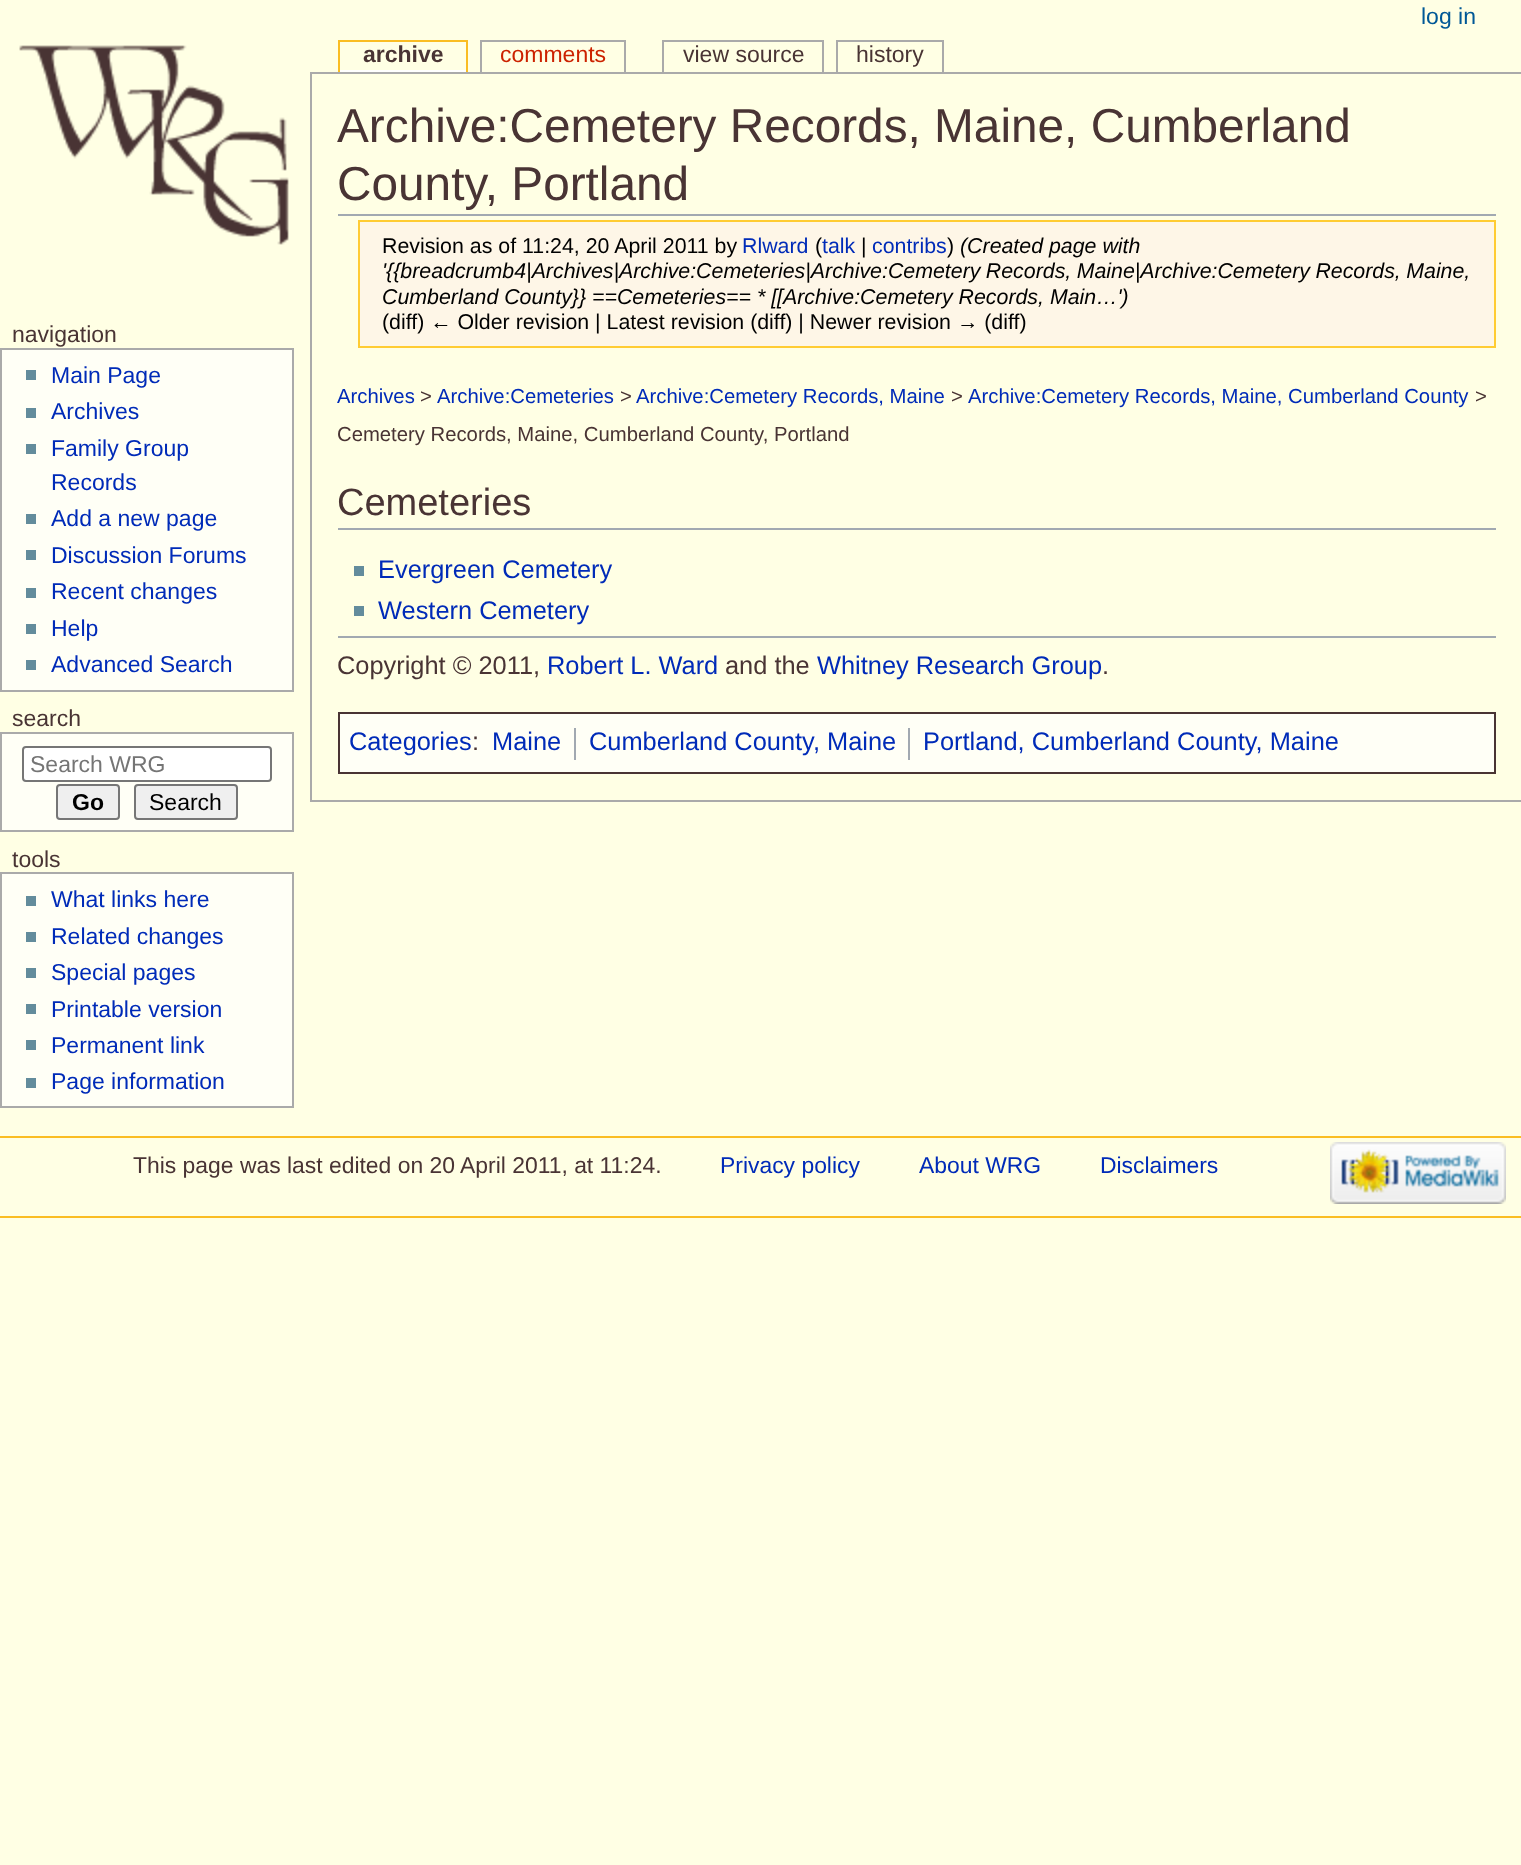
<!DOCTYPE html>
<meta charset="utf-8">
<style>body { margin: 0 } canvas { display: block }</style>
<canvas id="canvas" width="1521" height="1865"></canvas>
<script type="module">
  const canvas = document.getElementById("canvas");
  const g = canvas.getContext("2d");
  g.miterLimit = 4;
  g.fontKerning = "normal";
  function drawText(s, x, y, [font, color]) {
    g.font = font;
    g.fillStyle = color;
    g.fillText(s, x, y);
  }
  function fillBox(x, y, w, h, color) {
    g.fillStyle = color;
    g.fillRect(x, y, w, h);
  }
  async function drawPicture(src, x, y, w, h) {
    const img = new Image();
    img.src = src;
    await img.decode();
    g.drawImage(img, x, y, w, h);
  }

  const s1 = ["23px Liberation Sans", "#005896"];
  const s2 = ["bold 23px Liberation Sans", "#493434"];
  const s3 = ["23px Liberation Sans", "#CC2200"];
  const s4 = ["23px Liberation Sans", "#493434"];
  const s5 = ["23px Liberation Sans", "#002BB8"];
  const s6 = ["23px Liberation Sans", "#757575"];
  const s7 = ["bold 23px Liberation Sans", "#000000"];
  const s8 = ["23px Liberation Sans", "#000000"];
  const s9 = ["47.75px Liberation Sans", "#493434"];
  const s10 = ["21.35px Liberation Sans", "#000000"];
  const s11 = ["21.35px Liberation Sans", "#002BB8"];
  const s12 = ["italic 21.35px Liberation Sans", "#000000"];
  const s13 = ["20.3px Liberation Sans", "#002BB8"];
  const s14 = ["20.3px Liberation Sans", "#493434"];
  const s15 = ["38px Liberation Sans", "#493434"];
  const s16 = ["25.4px Liberation Sans", "#002BB8"];
  const s17 = ["25.4px Liberation Sans", "#493434"];
  const s18 = ["22.9px Liberation Sans", "#493434"];
  const s19 = ["22.9px Liberation Sans", "#002BB8"];

  fillBox(0, 0, 1521, 1865, "#FFFFE4");
  drawText("log in", 1421, 24, s1);
  await drawPicture("pic1.png", 19, 45, 270, 200);
  drawText("archive", 363, 62, s2);
  fillBox(340, 70, 126, 2, "#FFFFFF");
  fillBox(338, 40, 130, 2, "#FABD23");
  fillBox(466, 40, 2, 32, "#FABD23");
  fillBox(338, 40, 2, 32, "#FABD23");
  drawText("comments", 500, 62, s3);
  fillBox(480, 40, 146, 2, "#AAAAAA");
  fillBox(624, 40, 2, 32, "#AAAAAA");
  fillBox(480, 40, 2, 32, "#AAAAAA");
  drawText("view source", 683, 62, s4);
  fillBox(662, 40, 162, 2, "#AAAAAA");
  fillBox(822, 40, 2, 32, "#AAAAAA");
  fillBox(662, 40, 2, 32, "#AAAAAA");
  drawText("history", 856, 62, s4);
  fillBox(836, 40, 108, 2, "#AAAAAA");
  fillBox(942, 40, 2, 32, "#AAAAAA");
  fillBox(836, 40, 2, 32, "#AAAAAA");
  drawText("navigation", 12, 342, s4);
  g.fillStyle = "#FFFFF6";
  g.beginPath();
  g.rect(1, 349, 292, 342);
  g.fill();
  g.strokeStyle = "#AAAAAA";
  g.lineWidth = 2;
  g.stroke();
  fillBox(26, 370, 10, 10, "#638C9C");
  drawText("Main Page", 51, 383, s5);
  fillBox(26, 408, 10, 10, "#638C9C");
  drawText("Archives", 51, 419, s5);
  fillBox(26, 444, 10, 10, "#638C9C");
  drawText("Family Group", 51, 456, s5);
  drawText("Records", 51, 490, s5);
  fillBox(26, 514, 10, 10, "#638C9C");
  drawText("Add a new page", 51, 526, s5);
  fillBox(26, 550, 10, 10, "#638C9C");
  drawText("Discussion Forums", 51, 563, s5);
  fillBox(26, 588, 10, 10, "#638C9C");
  drawText("Recent changes", 51, 599, s5);
  fillBox(26, 624, 10, 10, "#638C9C");
  drawText("Help", 51, 636, s5);
  fillBox(26, 660, 10, 10, "#638C9C");
  drawText("Advanced Search", 51, 672, s5);
  drawText("search", 12, 726, s4);
  g.fillStyle = "#FFFFF6";
  g.beginPath();
  g.rect(1, 733, 292, 98);
  g.fill();
  g.stroke();
  g.fillStyle = "#FFFFFF";
  g.beginPath();
  g.roundRect(23, 747, 248, 34, 3);
  g.fill();
  g.strokeStyle = "#767676";
  g.stroke();
  drawText("Search WRG", 30, 772, s6);
  g.fillStyle = "#EFEFEF";
  g.beginPath();
  g.roundRect(57, 785, 62, 34, 3);
  g.fill();
  g.stroke();
  drawText("Go", 72, 810, s7);
  g.fillStyle = "#EFEFEF";
  g.beginPath();
  g.roundRect(135, 785, 102, 34, 3);
  g.fill();
  g.stroke();
  drawText("Search", 149, 810, s8);
  drawText("tools", 12, 867, s4);
  g.fillStyle = "#FFFFF6";
  g.beginPath();
  g.rect(1, 873, 292, 234);
  g.fill();
  g.strokeStyle = "#AAAAAA";
  g.stroke();
  fillBox(26, 896, 10, 10, "#638C9C");
  drawText("What links here", 51, 907, s5);
  fillBox(26, 932, 10, 10, "#638C9C");
  drawText("Related changes", 51, 944, s5);
  fillBox(26, 968, 10, 10, "#638C9C");
  drawText("Special pages", 51, 980, s5);
  fillBox(26, 1004, 10, 10, "#638C9C");
  drawText("Printable version", 51, 1017, s5);
  fillBox(26, 1040, 10, 10, "#638C9C");
  drawText("Permanent link", 51, 1053, s5);
  fillBox(26, 1078, 10, 10, "#638C9C");
  drawText("Page information", 51, 1089, s5);
  fillBox(310, 72, 1211, 2, "#AAAAAA");
  fillBox(310, 800, 1211, 2, "#AAAAAA");
  fillBox(310, 72, 2, 730, "#AAAAAA");
  fillBox(338, 214, 1158, 2, "#A2A9B1");
  drawText("Archive:Cemetery Records, Maine, Cumberland", 337, 142, s9);
  drawText("County, Portland", 337, 200, s9);
  g.fillStyle = "#FEF6E7";
  g.beginPath();
  g.rect(359, 221, 1136, 126);
  g.fill();
  g.strokeStyle = "#FFCC33";
  g.stroke();
  drawText("Revision as of 11:24, 20 April 2011 by", 382, 253, s10);
  drawText("Rlward", 742, 253, s11);
  drawText("(", 815, 253, s10);
  drawText("talk", 822, 253, s11);
  drawText("|", 861, 253, s10);
  drawText("contribs", 872, 253, s11);
  drawText(")", 947, 253, s10);
  drawText("(Created page with", 960, 253, s12);
  g.wordSpacing = "-0.5px";
  drawText("'{{breadcrumb4|Archives|Archive:Cemeteries|Archive:Cemetery Records, Maine|Archive:Cemetery Records, Maine,", 382, 278, s12);
  g.wordSpacing = "0px";
  drawText("Cumberland County}} ==Cemeteries== * [[Archive:Cemetery Records, Main…')", 382, 304, s12);
  drawText("(diff) ← Older revision | Latest revision (diff) | Newer revision → (diff)", 382, 329, s10);
  drawText("Archives", 337, 403, s13);
  drawText(">", 420, 403, s14);
  drawText("Archive:Cemeteries", 437, 403, s13);
  drawText(">", 620, 403, s14);
  drawText("Archive:Cemetery Records, Maine", 636, 403, s13);
  drawText(">", 951, 403, s14);
  drawText("Archive:Cemetery Records, Maine, Cumberland County", 968, 403, s13);
  drawText(">", 1475, 403, s14);
  drawText("Cemetery Records, Maine, Cumberland County, Portland", 337, 441, s14);
  fillBox(338, 528, 1158, 2, "#A2A9B1");
  drawText("Cemeteries", 337, 515, s15);
  fillBox(354, 566, 10, 10, "#638C9C");
  drawText("Evergreen Cemetery", 378, 578, s16);
  fillBox(354, 606, 10, 10, "#638C9C");
  drawText("Western Cemetery", 378, 619, s16);
  fillBox(338, 636, 1158, 2, "#A2A9B1");
  drawText("Copyright © 2011,", 337, 674, s17);
  drawText("Robert L. Ward", 547, 674, s16);
  drawText("and the", 725, 674, s17);
  drawText("Whitney Research Group", 817, 674, s16);
  drawText(".", 1102, 674, s17);
  g.fillStyle = "#FFFFF6";
  g.beginPath();
  g.rect(339, 713, 1156, 60);
  g.fill();
  g.strokeStyle = "#493434";
  g.stroke();
  drawText("Categories", 349, 750, s16);
  drawText(":", 472, 750, s17);
  drawText("Maine", 492, 750, s16);
  fillBox(574, 728, 2, 32, "#A2A9B1");
  drawText("Cumberland County, Maine", 589, 750, s16);
  fillBox(908, 728, 2, 32, "#A2A9B1");
  drawText("Portland, Cumberland County, Maine", 923, 750, s16);
  fillBox(0, 1136, 1521, 2, "#FABD23");
  fillBox(0, 1216, 1521, 2, "#FABD23");
  drawText("This page was last edited on 20 April 2011, at 11:24.", 133, 1173, s18);
  drawText("Privacy policy", 720, 1173, s19);
  drawText("About WRG", 919, 1173, s19);
  drawText("Disclaimers", 1100, 1173, s19);
  await drawPicture("pic2.png", 1330, 1142, 176, 62);
</script>
